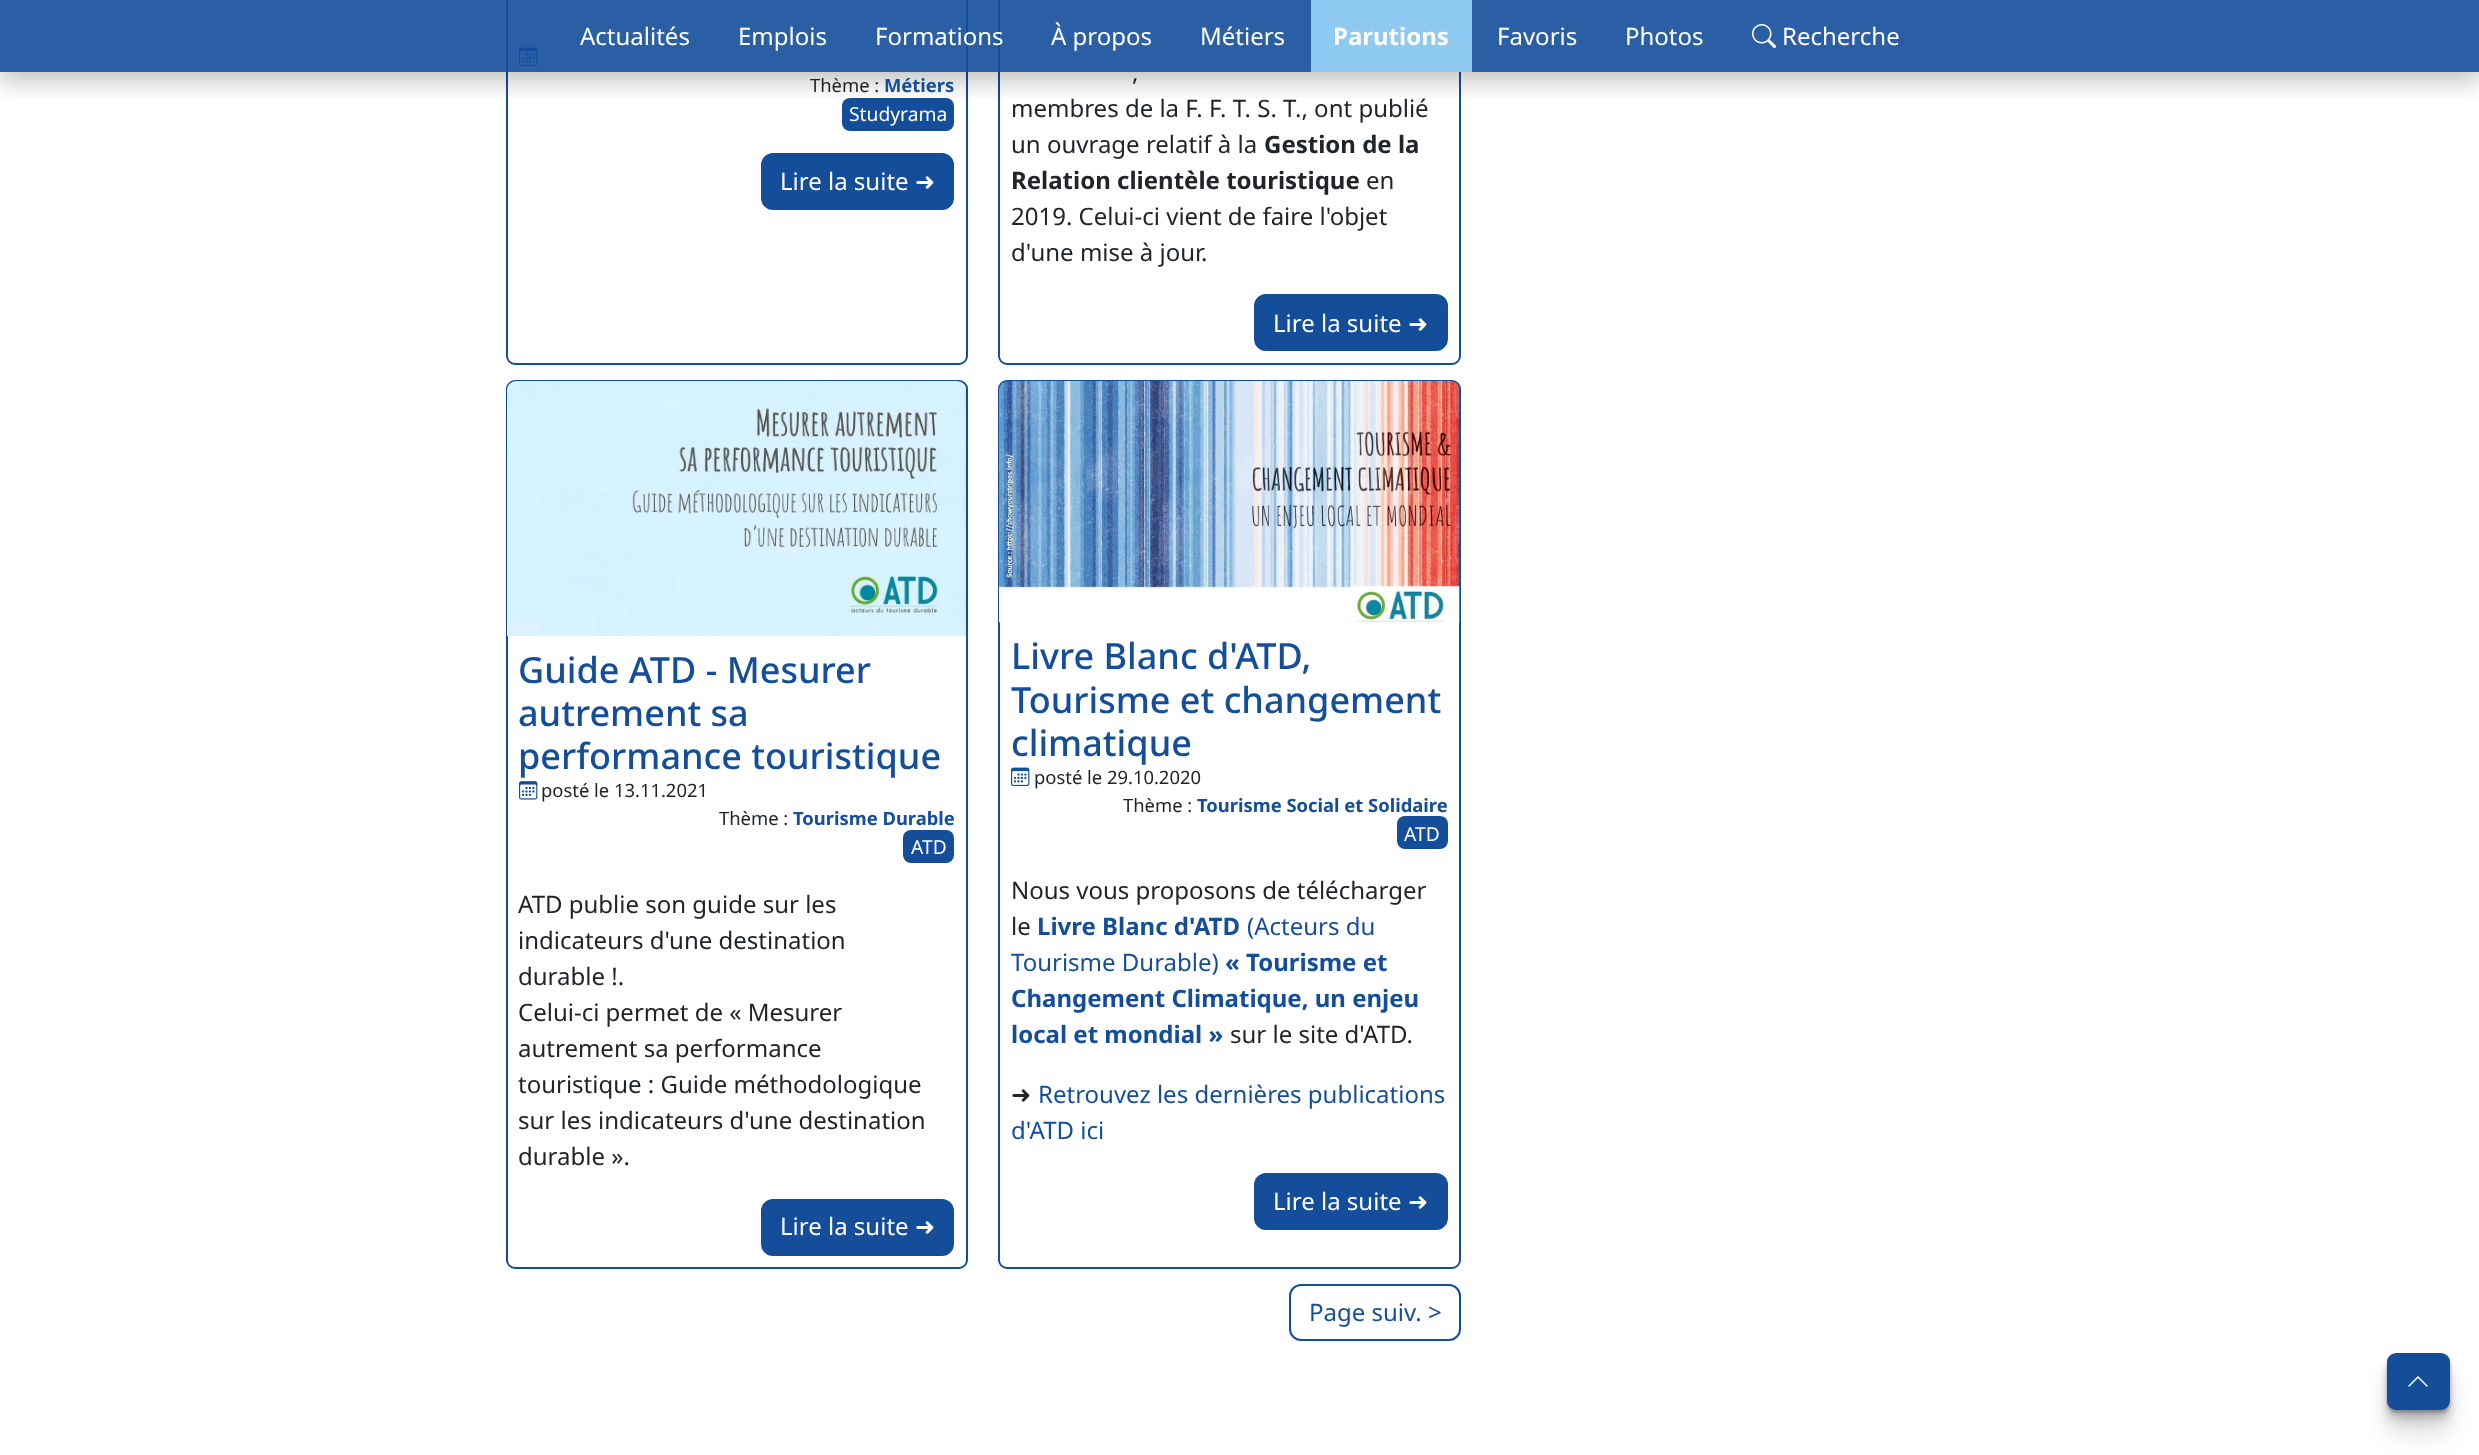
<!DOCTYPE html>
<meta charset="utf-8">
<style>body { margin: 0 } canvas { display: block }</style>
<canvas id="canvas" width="2479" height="1455"></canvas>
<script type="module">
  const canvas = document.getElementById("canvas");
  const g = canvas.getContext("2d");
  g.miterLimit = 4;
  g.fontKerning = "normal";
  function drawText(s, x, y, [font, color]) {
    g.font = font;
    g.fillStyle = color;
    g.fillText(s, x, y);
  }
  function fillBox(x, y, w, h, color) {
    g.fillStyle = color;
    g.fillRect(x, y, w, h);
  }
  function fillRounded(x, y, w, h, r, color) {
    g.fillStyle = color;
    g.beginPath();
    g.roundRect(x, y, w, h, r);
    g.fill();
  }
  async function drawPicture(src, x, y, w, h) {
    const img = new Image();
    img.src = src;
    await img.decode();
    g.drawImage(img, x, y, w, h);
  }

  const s1 = ["24px Noto Sans", "#FFFFFF"];
  const s2 = ["bold 24px Noto Sans", "#FFFFFF"];
  const s3 = ["18.4px Noto Sans", "#212529"];
  const s4 = ["bold 18.4px Noto Sans", "#144E9B"];
  const s5 = ["19.25px Noto Sans", "#FFFFFF"];
  const s6 = ["24px DejaVu Sans", "#FFFFFF"];
  const s7 = ["24px Noto Sans", "#212529"];
  const s8 = ["bold 24px Noto Sans", "#212529"];
  const s9 = ["500 36px Noto Sans", "#144E9B"];
  const s10 = ["bold 24px Noto Sans", "#144E9B"];
  const s11 = ["24px Noto Sans", "#144E9B"];
  const s12 = ["24px DejaVu Sans", "#212529"];

  fillBox(0, 0, 2479, 1455, "#FFFFFF");
  g.beginPath();
  g.roundRect(507, -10, 460, 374, 8);
  g.strokeStyle = "#144E9B";
  g.lineWidth = 2;
  g.stroke();
  await drawPicture("pic2.png", 519, 47, 19, 19);
  fillRounded(842, 98, 112, 33, 8, "#144E9B");
  g.beginPath();
  g.roundRect(999, -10, 461, 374, 8);
  g.stroke();
  g.save();
  g.beginPath();
  g.rect(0, 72, 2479, 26);
  g.clip();
  g.fillStyle = "rgba(0, 0, 0, 0.25)";
  g.filter = "blur(12px)";
  g.beginPath();
  g.rect(0, 9, 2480, 72);
  g.fill();
  g.filter = "none";
  g.restore();
  fillBox(0, 0, 2479, 72, "rgba(20, 78, 155, 0.9)");
  drawText("Actualités", 580, 45, s1);
  drawText("Emplois", 738, 45, s1);
  drawText("Formations", 875, 45, s1);
  drawText("À propos", 1051, 45, s1);
  drawText("Métiers", 1200, 45, s1);
  fillBox(1311, 0, 161, 72, "#8DC9F1");
  drawText("Parutions", 1333, 45, s2);
  drawText("Favoris", 1497, 45, s1);
  drawText("Photos", 1625, 45, s1);
  await drawPicture("pic1.png", 1752, 24, 24, 24);
  drawText("Recherche", 1782, 45, s1);
  drawText("Thème :", 810, 92, s3);
  drawText("Métiers", 884, 92, s4);
  drawText("Studyrama", 849, 121, s5);
  g.fillStyle = "#144E9B";
  g.beginPath();
  g.roundRect(762, 154, 191, 55, 11);
  g.fill();
  g.stroke();
  drawText("Lire la suite", 780, 190, s1);
  drawText("➜", 915, 190, s6);
  drawText(",", 1132, 81, s7);
  drawText("membres de la F. F. T. S. T., ont publié", 1011, 117, s7);
  drawText("un ouvrage relatif à la", 1011, 153, s7);
  drawText("Gestion de la", 1264, 153, s8);
  drawText("Relation clientèle touristique", 1011, 189, s8);
  drawText("en", 1366, 189, s7);
  drawText("2019. Celui-ci vient de faire l'objet", 1011, 225, s7);
  drawText("d'une mise à jour.", 1011, 261, s7);
  g.fillStyle = "#144E9B";
  g.beginPath();
  g.roundRect(1255, 295, 192, 55, 11);
  g.fill();
  g.stroke();
  drawText("Lire la suite", 1273, 332, s1);
  drawText("➜", 1408, 332, s6);
  g.beginPath();
  g.roundRect(507, 381, 460, 887, 8);
  g.stroke();
  await drawPicture("pic3.png", 507, 381, 459, 255);
  drawText("Guide ATD - Mesurer", 518, 683, s9);
  drawText("autrement sa", 518, 726, s9);
  drawText("performance touristique", 518, 769, s9);
  await drawPicture("pic4.png", 519, 781, 19, 19);
  drawText("posté le 13.11.2021", 541, 797, s3);
  drawText("Thème :", 719, 825, s3);
  drawText("Tourisme Durable", 793, 825, s4);
  fillRounded(903, 830, 51, 33, 8, "#144E9B");
  drawText("ATD", 911, 854, s5);
  drawText("ATD publie son guide sur les", 518, 913, s7);
  drawText("indicateurs d'une destination", 518, 949, s7);
  drawText("durable !.", 518, 985, s7);
  drawText("Celui-ci permet de « Mesurer", 518, 1021, s7);
  drawText("autrement sa performance", 518, 1057, s7);
  drawText("touristique : Guide méthodologique", 518, 1093, s7);
  drawText("sur les indicateurs d'une destination", 518, 1129, s7);
  drawText("durable ».", 518, 1165, s7);
  g.fillStyle = "#144E9B";
  g.beginPath();
  g.roundRect(762, 1200, 191, 55, 11);
  g.fill();
  g.stroke();
  drawText("Lire la suite", 780, 1235, s1);
  drawText("➜", 915, 1235, s6);
  g.beginPath();
  g.roundRect(999, 381, 461, 887, 8);
  g.stroke();
  await drawPicture("pic5.png", 999, 381, 461, 242);
  drawText("Livre Blanc d'ATD,", 1011, 669, s9);
  drawText("Tourisme et changement", 1011, 713, s9);
  drawText("climatique", 1011, 756, s9);
  await drawPicture("pic2.png", 1011, 767, 19, 19);
  drawText("posté le 29.10.2020", 1034, 784, s3);
  drawText("Thème :", 1123, 812, s3);
  drawText("Tourisme Social et Solidaire", 1197, 812, s4);
  fillRounded(1397, 816, 51, 33, 8, "#144E9B");
  drawText("ATD", 1404, 841, s5);
  drawText("Nous vous proposons de télécharger", 1011, 899, s7);
  drawText("le", 1011, 935, s7);
  drawText("Livre Blanc d'ATD", 1037, 935, s10);
  drawText("(Acteurs du", 1247, 935, s11);
  drawText("Tourisme Durable)", 1011, 971, s11);
  drawText("« Tourisme et", 1225, 971, s10);
  drawText("Changement Climatique, un enjeu", 1011, 1007, s10);
  drawText("local et mondial »", 1011, 1043, s10);
  drawText("sur le site d'ATD.", 1230, 1043, s7);
  drawText("➜", 1011, 1103, s12);
  drawText("Retrouvez les dernières publications", 1038, 1103, s11);
  drawText("d'ATD ici", 1011, 1139, s11);
  g.beginPath();
  g.roundRect(1255, 1174, 192, 55, 11);
  g.fill();
  g.stroke();
  drawText("Lire la suite", 1273, 1210, s1);
  drawText("➜", 1408, 1210, s6);
  g.beginPath();
  g.roundRect(1290, 1285, 170, 55, 11);
  g.stroke();
  drawText("Page suiv. >", 1309, 1321, s11);
  g.fillStyle = "rgba(0, 0, 0, 0.12)";
  g.filter = "blur(12px)";
  g.beginPath();
  g.roundRect(2387, 1377, 63, 57, 9);
  g.fill();
  g.filter = "none";
  g.filter = "blur(6px)";
  g.beginPath();
  g.roundRect(2387, 1365, 63, 57, 9);
  g.fill();
  g.filter = "none";
  g.filter = "blur(3px)";
  g.beginPath();
  g.roundRect(2387, 1359, 63, 57, 9);
  g.fill();
  g.filter = "none";
  g.filter = "blur(1.5px)";
  g.beginPath();
  g.roundRect(2387, 1356, 63, 57, 9);
  g.fill();
  g.filter = "none";
  g.filter = "blur(1px)";
  g.beginPath();
  g.roundRect(2387, 1355, 63, 57, 9);
  g.fill();
  g.filter = "none";
  g.fillStyle = "#144E9B";
  g.beginPath();
  g.roundRect(2388, 1354, 61, 55, 8);
  g.fill();
  g.stroke();
  await drawPicture("pic6.png", 2408, 1376, 20, 11);
</script>
